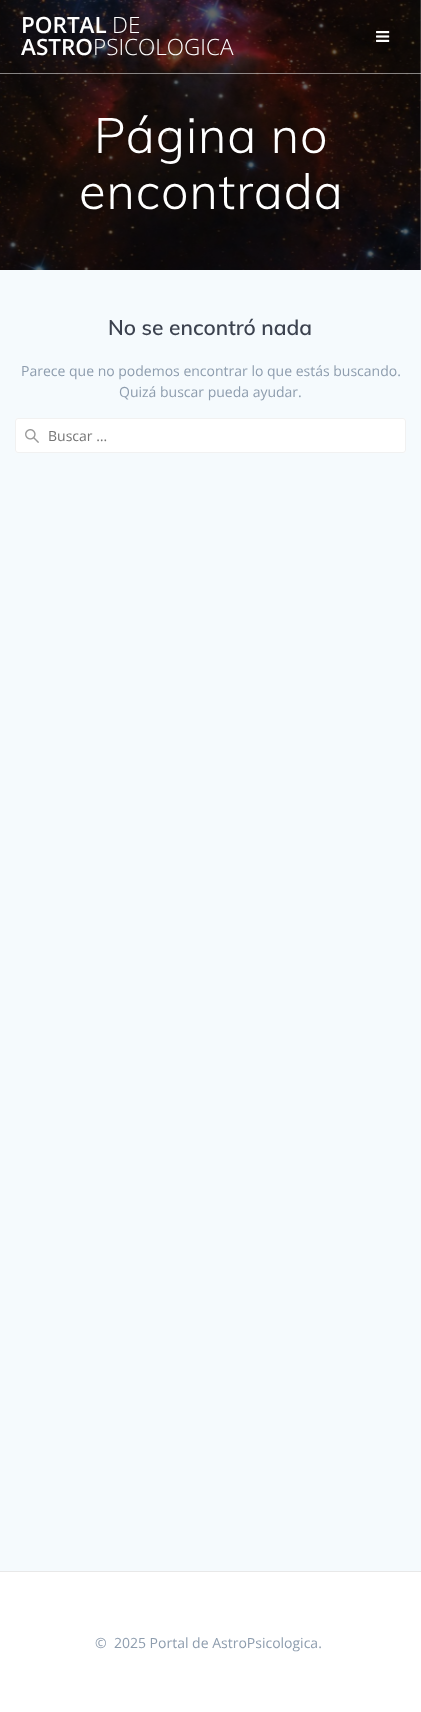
<!DOCTYPE html>
<meta charset="utf-8">
<style>body { margin: 0 } canvas { display: block }</style>
<canvas id="canvas" width="421" height="1712"></canvas>
<script type="module">
  const canvas = document.getElementById("canvas");
  const g = canvas.getContext("2d");
  g.miterLimit = 4;
  g.fontKerning = "normal";
  function drawText(s, x, y, [font, color]) {
    g.font = font;
    g.fillStyle = color;
    g.fillText(s, x, y);
  }
  function fillBox(x, y, w, h, color) {
    g.fillStyle = color;
    g.fillRect(x, y, w, h);
  }
  function fillRounded(x, y, w, h, r, color) {
    g.fillStyle = color;
    g.beginPath();
    g.roundRect(x, y, w, h, r);
    g.fill();
  }
  async function drawPicture(src, x, y, w, h) {
    const img = new Image();
    img.src = src;
    await img.decode();
    g.drawImage(img, x, y, w, h);
  }

  const s1 = ["600 22.5px Open Sans", "#FFFFFF"];
  const s2 = ["300 22.5px Open Sans", "#FFFFFF"];
  const s3 = ["300 49px Muli", "#FFFFFF"];
  const s4 = ["600 21px Muli", "#3C424F"];
  const s5 = ["14px Open Sans", "#8E9DAE"];
  const s6 = ["14px Open Sans", "#757575"];

  fillBox(0, 0, 421, 1712, "#FFFFFF");
  await drawPicture("pic2.png", 0, 0, 421, 270);
  fillBox(0, 73, 421, 1, "rgba(255, 255, 255, 0.5)");
  drawText("PORTAL", 21, 33, s1);
  drawText("DE", 112, 33, s2);
  drawText("ASTRO", 21, 55, s1);
  drawText("PSICOLOGICA", 93, 55, s2);
  g.fillStyle = "rgba(0, 0, 0, 0.1)";
  g.beginPath();
  g.arc(382.5, 36.5, 17.5, 0, Math.PI * 2);
  g.fill();
  await drawPicture("pic1.png", 376, 31, 14, 11);
  await drawPicture("pic3.png", 234, 52, 4, 8);
  g.letterSpacing = "1px";
  drawText("Página no", 94, 153, s3);
  drawText("encontrada", 79, 209, s3);
  fillBox(0, 270, 421, 1301, "#F5FAFD");
  g.letterSpacing = "0px";
  drawText("No se encontró nada", 108, 335, s4);
  drawText("Parece que no podemos encontrar lo que estás buscando.", 21, 376, s5);
  drawText("Quizá buscar pueda ayudar.", 119, 397, s5);
  fillRounded(15, 418, 391, 35, 3, "#FFFFFF");
  await drawPicture("pic4.png", 25, 429, 14, 14);
  g.beginPath();
  g.roundRect(15.5, 418.5, 390, 34, 2.5);
  g.strokeStyle = "#F1F1F1";
  g.stroke();
  drawText("Buscar …", 48, 441, s6);
  fillBox(0, 1571, 421, 1, "#E8E8E8");
  drawText("©  2025 Portal de AstroPsicologica.", 95, 1648, s5);
</script>
